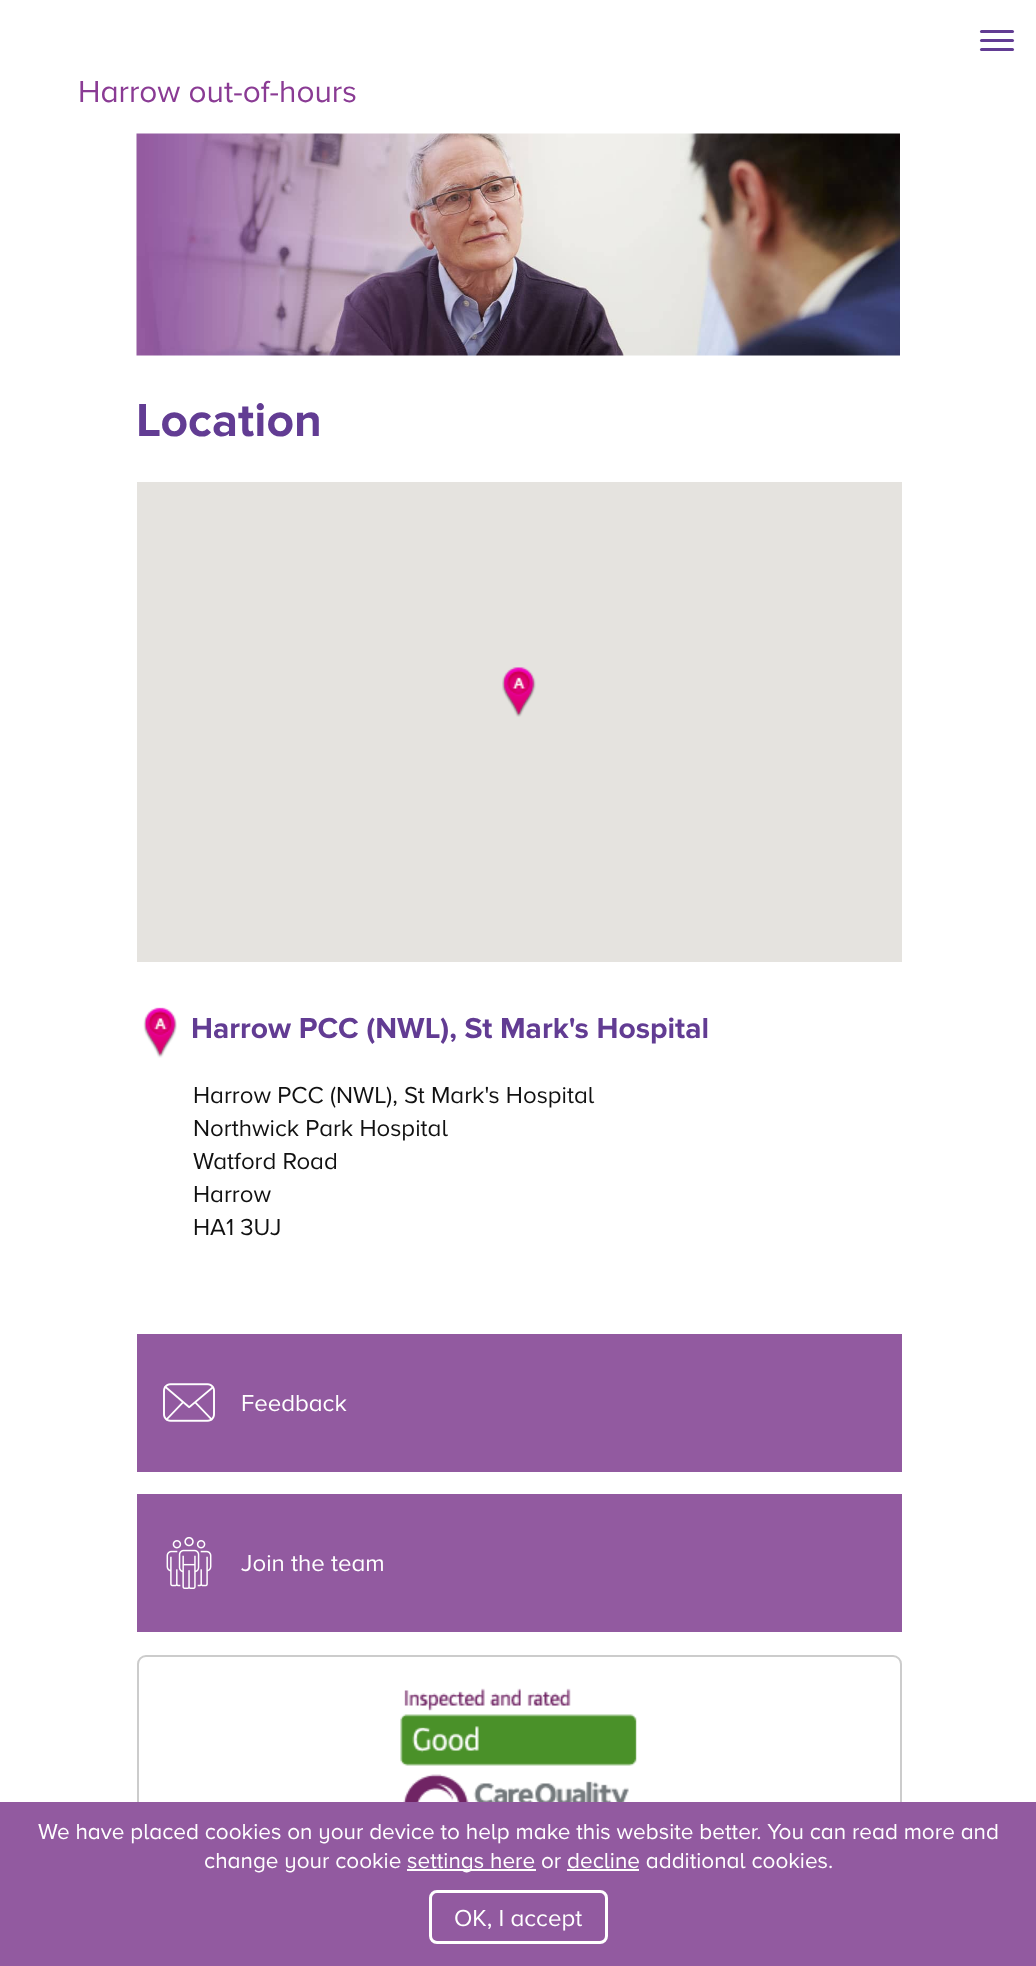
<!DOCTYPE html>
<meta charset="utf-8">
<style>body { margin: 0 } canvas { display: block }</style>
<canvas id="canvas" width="1036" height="1966"></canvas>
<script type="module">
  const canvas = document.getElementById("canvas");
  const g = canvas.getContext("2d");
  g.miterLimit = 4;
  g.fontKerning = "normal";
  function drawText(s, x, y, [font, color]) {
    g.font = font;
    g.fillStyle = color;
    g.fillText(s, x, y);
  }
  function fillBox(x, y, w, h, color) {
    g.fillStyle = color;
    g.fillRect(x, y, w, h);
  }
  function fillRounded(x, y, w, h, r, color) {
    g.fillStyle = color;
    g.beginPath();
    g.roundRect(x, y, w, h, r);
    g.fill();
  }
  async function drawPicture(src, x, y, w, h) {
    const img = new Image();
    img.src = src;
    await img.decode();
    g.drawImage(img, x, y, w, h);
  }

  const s1 = ["31.5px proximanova", "#8A3B94"];
  const s2 = ["bold 48px Proxima Nova", "#623C93"];
  const s3 = ["bold 30px Proxima Nova", "#623C93"];
  const s4 = ["24px proximanova", "#111111"];
  const s5 = ["24px proximanova", "#FFFFFF"];
  const s6 = ["22.5px proximanova", "#FFFFFF"];

  fillBox(0, 0, 1036, 1966, "#FFFFFF");
  fillRounded(980, 30, 34, 3, 1.5, "#623C93");
  fillRounded(980, 39, 34, 3, 1.5, "#623C93");
  fillRounded(980, 48, 34, 3, 1.5, "#623C93");
  drawText("Harrow out-of-hours", 78, 102, s1);
  await drawPicture("pic1.png", 136, 133, 764, 223);
  drawText("Location", 136, 436, s2);
  fillBox(137, 482, 765, 480, "#E5E3DF");
  await drawPicture("pic2.png", 502, 667, 34, 50);
  await drawPicture("pic3.png", 143, 1007, 34, 51);
  drawText("Harrow PCC (NWL), St Mark's Hospital", 191, 1038, s3);
  drawText("Harrow PCC (NWL), St Mark's Hospital", 193, 1103, s4);
  drawText("Northwick Park Hospital", 193, 1136, s4);
  drawText("Watford Road", 193, 1169, s4);
  drawText("Harrow", 193, 1202, s4);
  drawText("HA1 3UJ", 193, 1235, s4);
  fillBox(137, 1334, 765, 138, "#925AA0");
  await drawPicture("pic4.png", 163, 1383, 52, 39);
  drawText("Feedback", 241, 1411, s5);
  fillBox(137, 1494, 765, 138, "#925AA0");
  await drawPicture("pic5.png", 166, 1536, 46, 53);
  drawText("Join the team", 241, 1571, s5);
  g.beginPath();
  g.roundRect(138, 1656, 763, 226, 8);
  g.strokeStyle = "#CCCCCC";
  g.lineWidth = 2;
  g.stroke();
  await drawPicture("pic6.png", 400, 1688, 237, 114);
  fillBox(0, 1802, 1036, 164, "#925AA0");
  drawText("We have placed cookies on your device to help make this website better. You can read more and", 38, 1839, s6);
  drawText("change your cookie", 204, 1868, s6);
  fillBox(407, 1869, 129, 2, "#FFFFFF");
  drawText("settings here or decline additional cookies.", 407, 1868, s6);
  fillBox(567, 1869, 72, 2, "#FFFFFF");
  g.beginPath();
  g.roundRect(430.5, 1891.5, 176, 51, 6.5);
  g.strokeStyle = "#FFFFFF";
  g.lineWidth = 3;
  g.stroke();
  drawText("OK, I accept", 454, 1926, s5);
</script>
